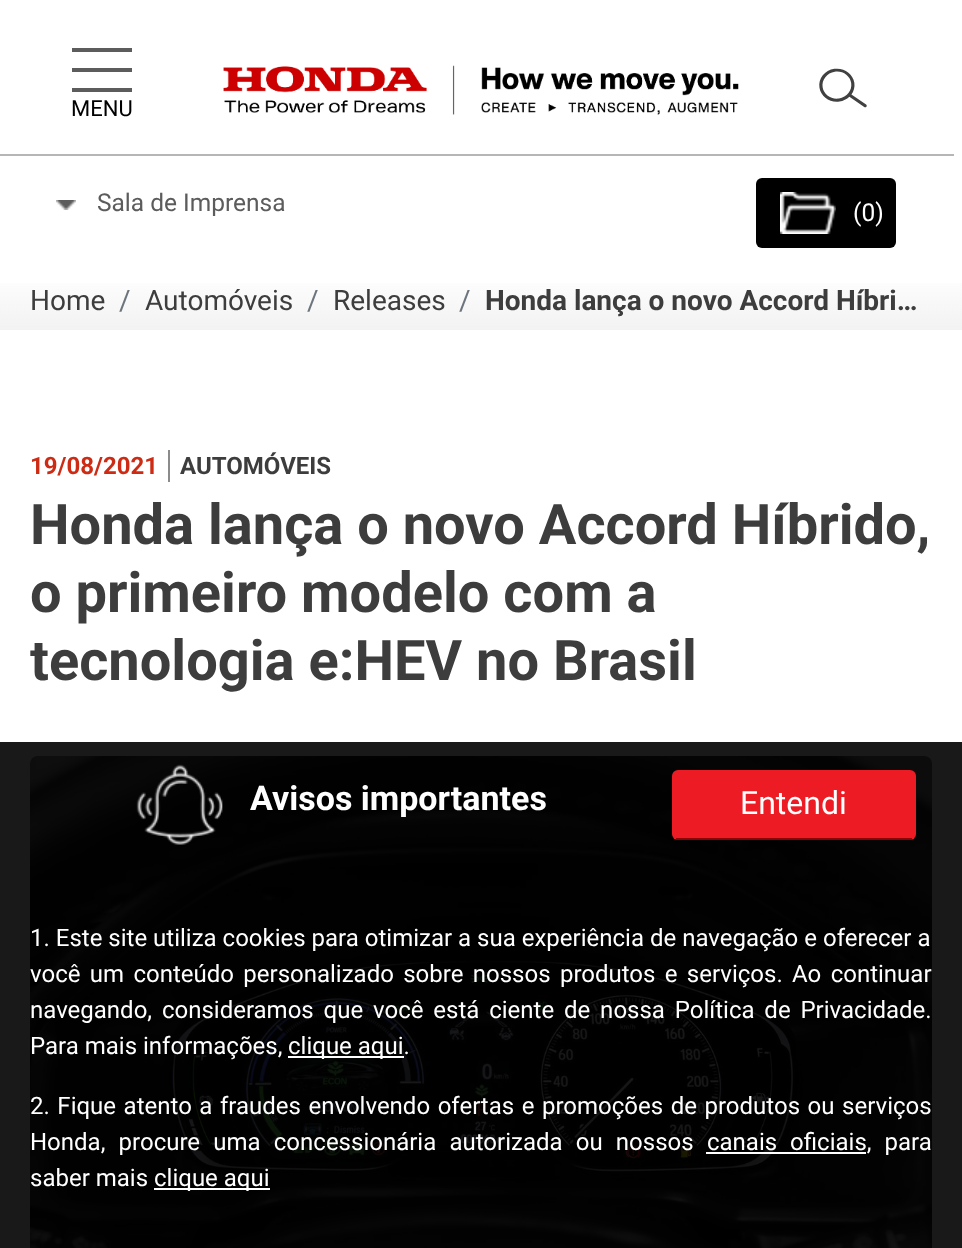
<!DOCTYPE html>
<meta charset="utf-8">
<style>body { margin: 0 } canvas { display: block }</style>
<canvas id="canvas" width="962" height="1248"></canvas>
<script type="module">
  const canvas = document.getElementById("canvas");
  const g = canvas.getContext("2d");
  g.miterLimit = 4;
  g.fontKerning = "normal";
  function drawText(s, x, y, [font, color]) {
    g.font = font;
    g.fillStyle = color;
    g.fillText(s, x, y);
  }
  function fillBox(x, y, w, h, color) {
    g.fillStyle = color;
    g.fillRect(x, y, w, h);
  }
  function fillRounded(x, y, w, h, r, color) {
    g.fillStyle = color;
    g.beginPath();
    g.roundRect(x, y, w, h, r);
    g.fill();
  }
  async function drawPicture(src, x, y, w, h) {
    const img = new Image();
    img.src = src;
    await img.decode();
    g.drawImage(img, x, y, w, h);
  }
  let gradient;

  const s1 = ["22px Roboto", "#000000"];
  const s2 = ["24.5px Roboto", "#5C5C5C"];
  const s3 = ["24.5px Roboto", "#FFFFFF"];
  const s4 = ["28px Roboto", "#3D3D3E"];
  const s5 = ["28px Roboto", "#6C757D"];
  const s6 = ["bold 28px Roboto", "#3D3D3E"];
  const s7 = ["bold 24px Roboto", "#CD2B14"];
  const s8 = ["bold 24px Roboto", "#3D3D3E"];
  const s9 = ["bold 56px Roboto", "#3D3D3E"];
  const s10 = ["bold 34px Roboto", "#FFFFFF"];
  const s11 = ["32px Roboto", "#FFFFFF"];
  const s12 = ["24px Roboto", "#FFFFFF"];

  fillBox(0, 0, 962, 1248, "#FFFFFF");
  fillBox(0, 742, 962, 506, "#191919");
  await drawPicture("pic1.png", 223, 65, 516, 50);
  fillBox(72, 68, 60, 4, "#5C5C5C");
  fillBox(72, 48, 60, 4, "#5C5C5C");
  fillBox(72, 88, 60, 4, "#5C5C5C");
  drawText("MENU", 71, 116, s1);
  fillBox(0, 154, 954, 2, "#B6B6B6");
  await drawPicture("pic2.png", 56, 200, 20, 10);
  drawText("Sala de Imprensa", 97, 211, s2);
  await drawPicture("pic3.png", 819, 68, 48, 40);
  fillRounded(756, 178, 140, 70, 6, "#000000");
  await drawPicture("pic4.png", 780, 192, 56, 42);
  drawText("(0)", 853, 221, s3);
  gradient = g.createLinearGradient(481, 272, 481, 330);
  gradient.addColorStop(0, "#FFFFFF");
  gradient.addColorStop(1, "#F2F2F2");
  g.fillStyle = gradient;
  g.fillRect(0, 283, 962, 47);
  drawText("Home", 30, 310, s4);
  drawText("/", 119, 310, s5);
  drawText("Automóveis", 145, 310, s4);
  drawText("/", 307, 310, s5);
  drawText("Releases", 333, 310, s4);
  drawText("/", 459, 310, s5);
  drawText("Honda lança o novo Accord Híbri…", 485, 310, s6);
  drawText("19/08/2021", 30, 474, s7);
  fillBox(168, 450, 2, 32, "#8B8B8B");
  drawText("AUTOMÓVEIS", 180, 474, s8);
  drawText("Honda lança o novo Accord Híbrido,", 30, 544, s9);
  drawText("o primeiro modelo com a", 30, 612, s9);
  drawText("tecnologia e:HEV no Brasil", 30, 680, s9);
  await drawPicture("pic5.png", 30, 756, 902, 492);
  await drawPicture("pic6.png", 136, 764, 87, 81);
  drawText("Avisos importantes", 250, 810, s10);
  fillRounded(672, 770, 244, 70, 6, "#ED1C24");
  fillBox(676, 838, 236, 2, "#8D0005");
  drawText("Entendi", 740, 814, s11);
  drawText("1. Este site utiliza cookies para otimizar a sua experiência de navegação e oferecer a", 30, 946, s12);
  g.wordSpacing = "3.4px";
  drawText("você um conteúdo personalizado sobre nossos produtos e serviços. Ao continuar", 30, 982, s12);
  g.wordSpacing = "3.9px";
  drawText("navegando, consideramos que você está ciente de nossa Política de Privacidade.", 30, 1018, s12);
  g.wordSpacing = "0px";
  drawText("Para mais informações,", 30, 1054, s12);
  fillBox(288, 1056, 116, 2, "#FFFFFF");
  drawText("clique aqui.", 288, 1054, s12);
  g.wordSpacing = "1.6px";
  drawText("2. Fique atento a fraudes envolvendo ofertas e promoções de produtos ou serviços", 30, 1114, s12);
  g.wordSpacing = "7.25px";
  drawText("Honda, procure uma concessionária autorizada ou nossos", 30, 1150, s12);
  fillBox(706, 1152, 160, 2, "#FFFFFF");
  g.wordSpacing = "7px";
  drawText("canais oficiais, para", 707, 1150, s12);
  g.wordSpacing = "0px";
  drawText("saber mais", 30, 1186, s12);
  fillBox(154, 1188, 116, 2, "#FFFFFF");
  drawText("clique aqui", 154, 1186, s12);
</script>
